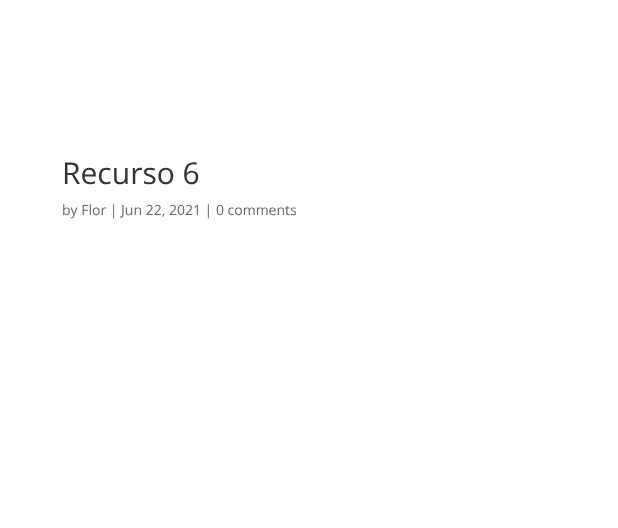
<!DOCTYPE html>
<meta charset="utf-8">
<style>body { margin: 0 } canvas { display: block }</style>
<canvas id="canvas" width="618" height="528"></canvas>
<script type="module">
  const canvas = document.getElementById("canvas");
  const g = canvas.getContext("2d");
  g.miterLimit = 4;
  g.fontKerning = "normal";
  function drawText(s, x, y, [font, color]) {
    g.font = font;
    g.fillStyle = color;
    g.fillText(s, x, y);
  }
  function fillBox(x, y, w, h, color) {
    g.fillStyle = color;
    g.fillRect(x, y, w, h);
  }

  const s1 = ["30px Open Sans", "#333333"];
  const s2 = ["14px Open Sans", "#666666"];

  fillBox(0, 0, 618, 528, "#FFFFFF");
  drawText("Recurso 6", 62, 184, s1);
  drawText("by Flor | Jun 22, 2021 | 0 comments", 62, 215, s2);
</script>
